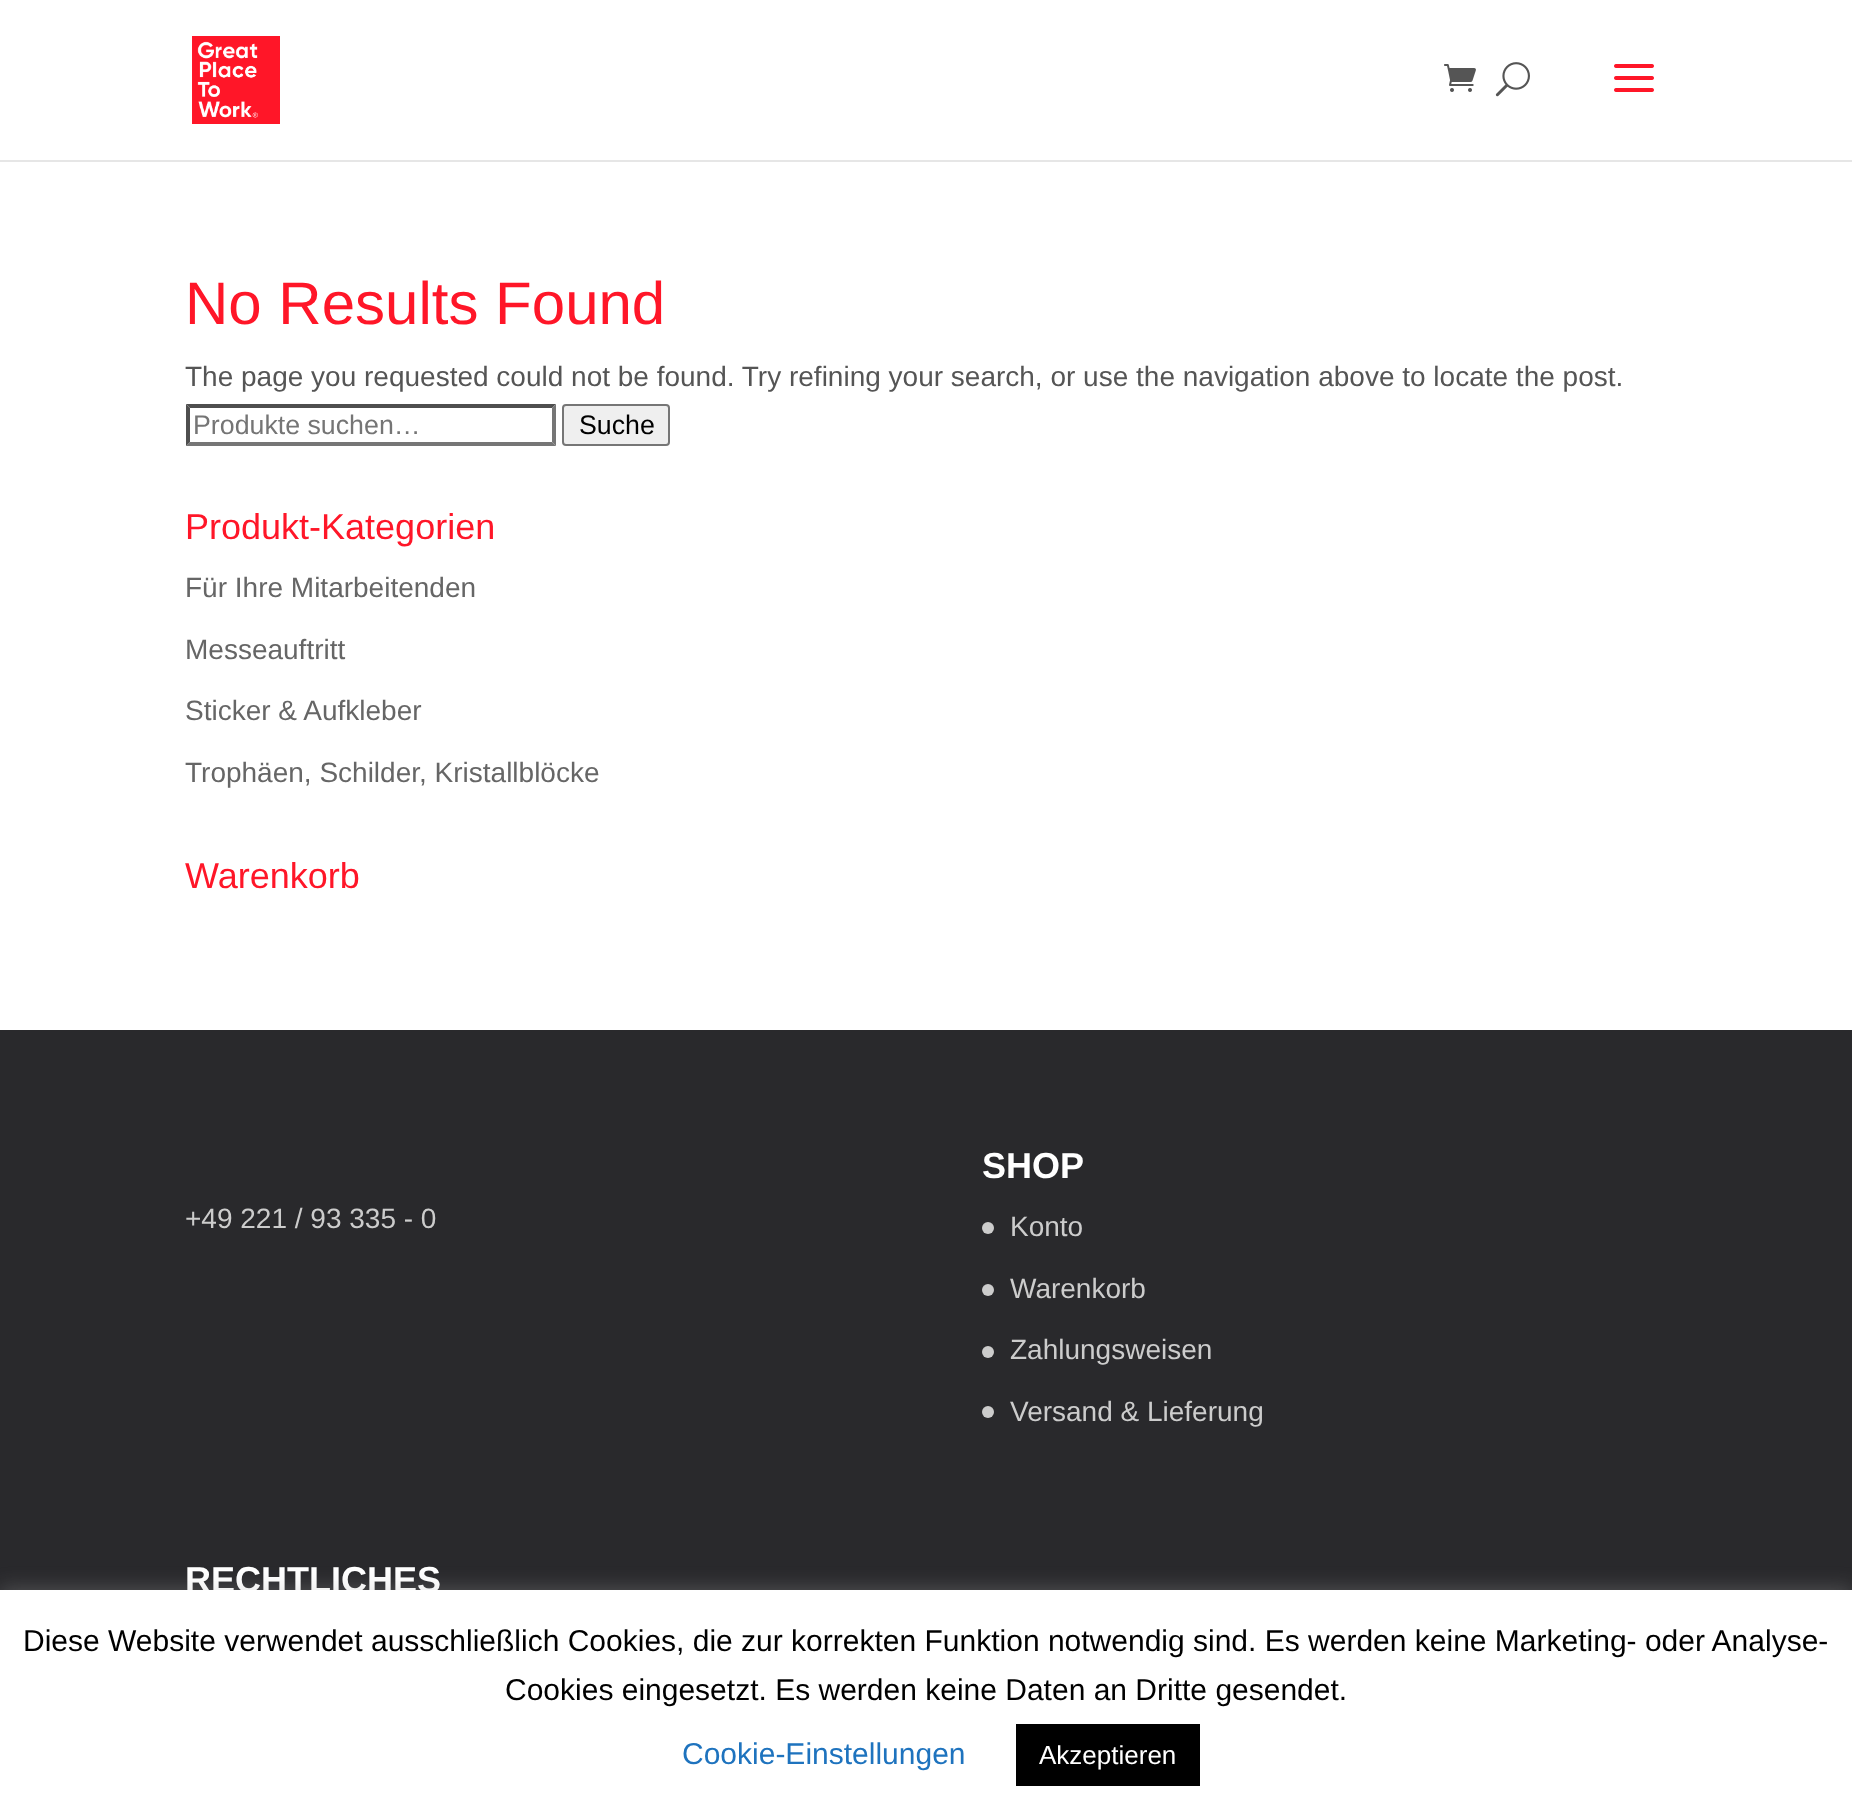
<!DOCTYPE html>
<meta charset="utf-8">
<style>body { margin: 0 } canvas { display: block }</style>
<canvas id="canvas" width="1852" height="1820"></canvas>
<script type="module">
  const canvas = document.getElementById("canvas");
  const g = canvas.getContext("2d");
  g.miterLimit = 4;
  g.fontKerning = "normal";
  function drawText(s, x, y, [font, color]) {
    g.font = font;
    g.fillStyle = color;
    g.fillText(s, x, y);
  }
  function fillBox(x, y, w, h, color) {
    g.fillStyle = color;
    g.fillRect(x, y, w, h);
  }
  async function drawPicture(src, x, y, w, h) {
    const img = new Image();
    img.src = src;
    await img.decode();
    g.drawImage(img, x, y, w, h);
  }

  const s1 = ["60px Liberation Sans", "#FF1628"];
  const s2 = ["28px Liberation Sans", "#555555"];
  const s3 = ["26.75px Liberation Sans", "#757575"];
  const s4 = ["26.75px Liberation Sans", "#000000"];
  const s5 = ["36px Liberation Sans", "#FF1628"];
  const s6 = ["28px Liberation Sans", "#666666"];
  const s7 = ["28px Liberation Sans", "#CCCCCC"];
  const s8 = ["bold 36px Liberation Sans", "#FFFFFF"];
  const s9 = ["30px Liberation Sans", "#000000"];
  const s10 = ["30px Liberation Sans", "#1E73BE"];
  const s11 = ["26px Liberation Sans", "#FFFFFF"];

  fillBox(0, 0, 1852, 1820, "#FFFFFF");
  fillBox(0, 160, 1852, 2, "#E6E6E6");
  await drawPicture("pic1.png", 192, 36, 88, 88);
  await drawPicture("pic2.png", 1444, 64, 32, 28);
  await drawPicture("pic3.png", 1495, 62, 35, 35);
  await drawPicture("pic4.png", 1614, 64, 40, 28);
  drawText("No Results Found", 185, 324, s1);
  drawText("The page you requested could not be found. Try refining your search, or use the navigation above to locate the post.", 185, 386, s2);
  g.fillStyle = "#4F4F4F";
  g.beginPath();
  g.moveTo(186, 404);
  g.lineTo(556, 404);
  g.lineTo(552, 408);
  g.lineTo(190, 408);
  g.closePath();
  g.fill();
  g.fillStyle = "#767676";
  g.beginPath();
  g.moveTo(556, 404);
  g.lineTo(556, 446);
  g.lineTo(552, 442);
  g.lineTo(552, 408);
  g.closePath();
  g.fill();
  g.beginPath();
  g.moveTo(556, 446);
  g.lineTo(186, 446);
  g.lineTo(190, 442);
  g.lineTo(552, 442);
  g.closePath();
  g.fill();
  g.fillStyle = "#4F4F4F";
  g.beginPath();
  g.moveTo(186, 446);
  g.lineTo(186, 404);
  g.lineTo(190, 408);
  g.lineTo(190, 442);
  g.closePath();
  g.fill();
  drawText("Produkte suchen…", 193, 434, s3);
  g.fillStyle = "#EFEFEF";
  g.beginPath();
  g.roundRect(563, 405, 106, 40, 3);
  g.fill();
  g.strokeStyle = "#767676";
  g.lineWidth = 2;
  g.stroke();
  drawText("Suche", 579, 434, s4);
  drawText("Produkt-Kategorien", 185, 539, s5);
  drawText("Für Ihre Mitarbeitenden", 185, 597, s6);
  drawText("Messeauftritt", 185, 659, s6);
  drawText("Sticker & Aufkleber", 185, 720, s6);
  drawText("Trophäen, Schilder, Kristallblöcke", 185, 782, s6);
  drawText("Warenkorb", 185, 888, s5);
  fillBox(0, 1030, 1852, 560, "#29292C");
  drawText("+49 221 / 93 335 - 0", 185, 1228, s7);
  drawText("SHOP", 982, 1178, s8);
  g.fillStyle = "#CCCCCC";
  g.beginPath();
  g.arc(988, 1228, 6, 0, Math.PI * 2);
  g.fill();
  drawText("Konto", 1010, 1236, s7);
  g.beginPath();
  g.arc(988, 1290, 6, 0, Math.PI * 2);
  g.fill();
  drawText("Warenkorb", 1010, 1298, s7);
  g.beginPath();
  g.arc(988, 1352, 6, 0, Math.PI * 2);
  g.fill();
  drawText("Zahlungsweisen", 1010, 1359, s7);
  g.beginPath();
  g.arc(988, 1412, 6, 0, Math.PI * 2);
  g.fill();
  drawText("Versand & Lieferung", 1010, 1421, s7);
  drawText("RECHTLICHES", 185, 1592, s8);
  g.fillStyle = "rgba(172, 171, 171, 0.3)";
  g.filter = "blur(10px)";
  g.beginPath();
  g.rect(0, 1588, 1852, 230);
  g.fill();
  g.filter = "none";
  fillBox(0, 1590, 1852, 230, "#FFFFFF");
  drawText("Diese Website verwendet ausschließlich Cookies, die zur korrekten Funktion notwendig sind. Es werden keine Marketing- oder Analyse-", 23, 1651, s9);
  drawText("Cookies eingesetzt. Es werden keine Daten an Dritte gesendet.", 505, 1700, s9);
  drawText("Cookie-Einstellungen", 682, 1764, s10);
  fillBox(1016, 1724, 184, 62, "#000000");
  drawText("Akzeptieren", 1039, 1764, s11);
</script>
